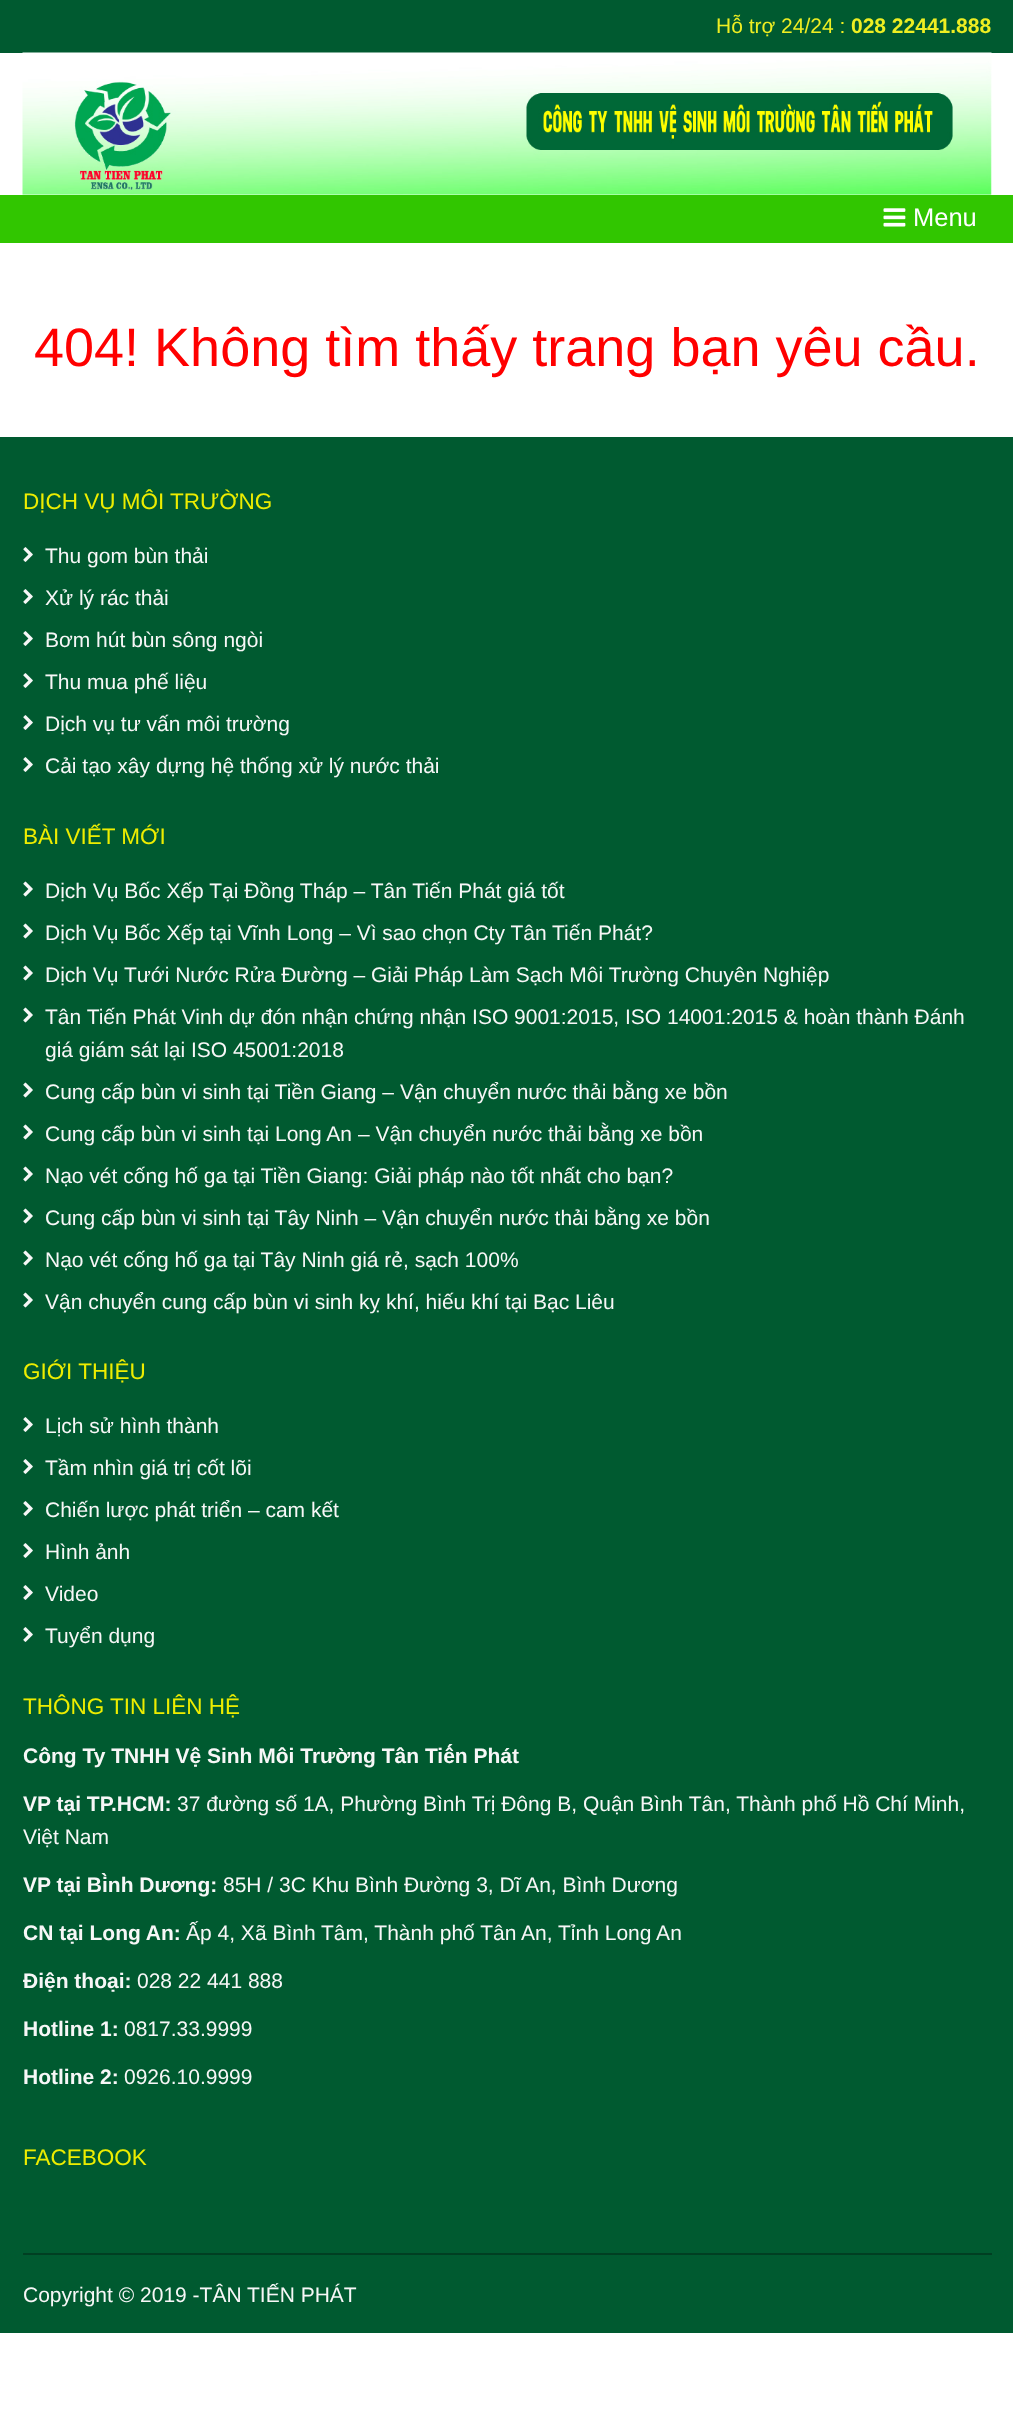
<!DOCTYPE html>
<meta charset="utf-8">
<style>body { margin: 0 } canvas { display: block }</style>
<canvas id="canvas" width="1013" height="2425"></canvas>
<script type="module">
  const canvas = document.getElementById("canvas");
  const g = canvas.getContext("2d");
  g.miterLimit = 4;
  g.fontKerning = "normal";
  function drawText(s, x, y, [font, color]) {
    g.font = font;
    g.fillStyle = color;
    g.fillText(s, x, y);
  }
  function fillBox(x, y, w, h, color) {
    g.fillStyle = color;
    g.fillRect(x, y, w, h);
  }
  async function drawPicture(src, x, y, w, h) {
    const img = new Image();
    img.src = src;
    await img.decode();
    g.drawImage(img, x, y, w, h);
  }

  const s1 = ["21px Liberation Sans", "#EEEE22"];
  const s2 = ["bold 21px Liberation Sans", "#EEEE22"];
  const s3 = ["25.5px Liberation Sans", "#FFFFFF"];
  const s4 = ["54px Liberation Sans", "#FF0000"];
  const s5 = ["22.5px Liberation Sans", "#EDED00"];
  const s6 = ["21px Liberation Sans", "#F7F7F7"];
  const s7 = ["bold 21px Liberation Sans", "#F7F7F7"];

  fillBox(0, 0, 1013, 2425, "#FFFFFF");
  fillBox(0, 0, 1013, 53, "#005A30");
  drawText("Hỗ trợ 24/24 :", 716, 33, s1);
  drawText("028 22441.888", 851, 33, s2);
  await drawPicture("pic1.png", 22, 52, 970, 143);
  fillBox(0, 195, 1013, 48, "#31C600");
  await drawPicture("pic2.png", 883, 208, 23, 19);
  drawText("Menu", 913, 226, s3);
  drawText("404! Không tìm thấy trang bạn yêu cầu.", 34, 366, s4);
  fillBox(0, 437, 1013, 1896, "#005A30");
  drawText("DỊCH VỤ MÔI TRƯỜNG", 23, 509, s5);
  await drawPicture("pic3.png", 23, 547, 10, 15);
  drawText("Thu gom bùn thải", 45, 563, s6);
  await drawPicture("pic3.png", 23, 589, 10, 15);
  drawText("Xử lý rác thải", 45, 605, s6);
  await drawPicture("pic3.png", 23, 631, 10, 15);
  drawText("Bơm hút bùn sông ngòi", 45, 647, s6);
  await drawPicture("pic3.png", 23, 673, 10, 15);
  drawText("Thu mua phế liệu", 45, 689, s6);
  await drawPicture("pic3.png", 23, 715, 10, 15);
  drawText("Dịch vụ tư vấn môi trường", 45, 731, s6);
  await drawPicture("pic3.png", 23, 757, 10, 15);
  drawText("Cải tạo xây dựng hệ thống xử lý nước thải", 45, 773, s6);
  drawText("BÀI VIẾT MỚI", 23, 844, s5);
  await drawPicture("pic4.png", 23, 881, 10, 16);
  drawText("Dịch Vụ Bốc Xếp Tại Đồng Tháp – Tân Tiến Phát giá tốt", 45, 898, s6);
  await drawPicture("pic4.png", 23, 923, 10, 16);
  drawText("Dịch Vụ Bốc Xếp tại Vĩnh Long – Vì sao chọn Cty Tân Tiến Phát?", 45, 940, s6);
  await drawPicture("pic4.png", 23, 965, 10, 16);
  drawText("Dịch Vụ Tưới Nước Rửa Đường – Giải Pháp Làm Sạch Môi Trường Chuyên Nghiệp", 45, 982, s6);
  await drawPicture("pic4.png", 23, 1007, 10, 16);
  drawText("Tân Tiến Phát Vinh dự đón nhận chứng nhận ISO 9001:2015, ISO 14001:2015 & hoàn thành Đánh", 45, 1024, s6);
  drawText("giá giám sát lại ISO 45001:2018", 45, 1057, s6);
  await drawPicture("pic4.png", 23, 1082, 10, 16);
  drawText("Cung cấp bùn vi sinh tại Tiền Giang – Vận chuyển nước thải bằng xe bồn", 45, 1099, s6);
  await drawPicture("pic4.png", 23, 1124, 10, 16);
  drawText("Cung cấp bùn vi sinh tại Long An – Vận chuyển nước thải bằng xe bồn", 45, 1141, s6);
  await drawPicture("pic4.png", 23, 1166, 10, 16);
  drawText("Nạo vét cống hố ga tại Tiền Giang: Giải pháp nào tốt nhất cho bạn?", 45, 1183, s6);
  await drawPicture("pic4.png", 23, 1208, 10, 16);
  drawText("Cung cấp bùn vi sinh tại Tây Ninh – Vận chuyển nước thải bằng xe bồn", 45, 1225, s6);
  await drawPicture("pic4.png", 23, 1250, 10, 16);
  drawText("Nạo vét cống hố ga tại Tây Ninh giá rẻ, sạch 100%", 45, 1267, s6);
  await drawPicture("pic4.png", 23, 1292, 10, 16);
  drawText("Vận chuyển cung cấp bùn vi sinh kỵ khí, hiếu khí tại Bạc Liêu", 45, 1309, s6);
  drawText("GIỚI THIỆU", 23, 1379, s5);
  await drawPicture("pic3.png", 23, 1417, 10, 15);
  drawText("Lịch sử hình thành", 45, 1433, s6);
  await drawPicture("pic3.png", 23, 1459, 10, 15);
  drawText("Tầm nhìn giá trị cốt lõi", 45, 1475, s6);
  await drawPicture("pic3.png", 23, 1501, 10, 15);
  drawText("Chiến lược phát triển – cam kết", 45, 1517, s6);
  await drawPicture("pic3.png", 23, 1543, 10, 15);
  drawText("Hình ảnh", 45, 1559, s6);
  await drawPicture("pic3.png", 23, 1585, 10, 15);
  drawText("Video", 45, 1601, s6);
  await drawPicture("pic3.png", 23, 1627, 10, 15);
  drawText("Tuyển dụng", 45, 1643, s6);
  drawText("THÔNG TIN LIÊN HỆ", 23, 1714, s5);
  drawText("Công Ty TNHH Vệ Sinh Môi Trường Tân Tiến Phát", 23, 1763, s7);
  drawText("VP tại TP.HCM:", 23, 1811, s7);
  drawText("37 đường số 1A, Phường Bình Trị Đông B, Quận Bình Tân, Thành phố Hồ Chí Minh,", 177, 1811, s6);
  drawText("Việt Nam", 23, 1844, s6);
  drawText("VP tại Bình Dương:", 23, 1892, s7);
  drawText("85H / 3C Khu Bình Đường 3, Dĩ An, Bình Dương", 223, 1892, s6);
  drawText("CN tại Long An:", 23, 1940, s7);
  drawText("Ấp 4, Xã Bình Tâm, Thành phố Tân An, Tỉnh Long An", 186, 1940, s6);
  g.save();
  g.beginPath();
  g.rect(23, 1686, 969, 422);
  g.clip();
  drawText("Điện thoại:", 23, 1988, s7);
  g.restore();
  drawText("028 22 441 888", 137, 1988, s6);
  drawText("Hotline 1:", 23, 2036, s7);
  drawText("0817.33.9999", 124, 2036, s6);
  drawText("Hotline 2:", 23, 2084, s7);
  drawText("0926.10.9999", 124, 2084, s6);
  drawText("FACEBOOK", 23, 2165, s5);
  fillBox(23, 2253, 969, 2, "#003F22");
  drawText("Copyright © 2019 -TÂN TIẾN PHÁT", 23, 2302, s6);
</script>
